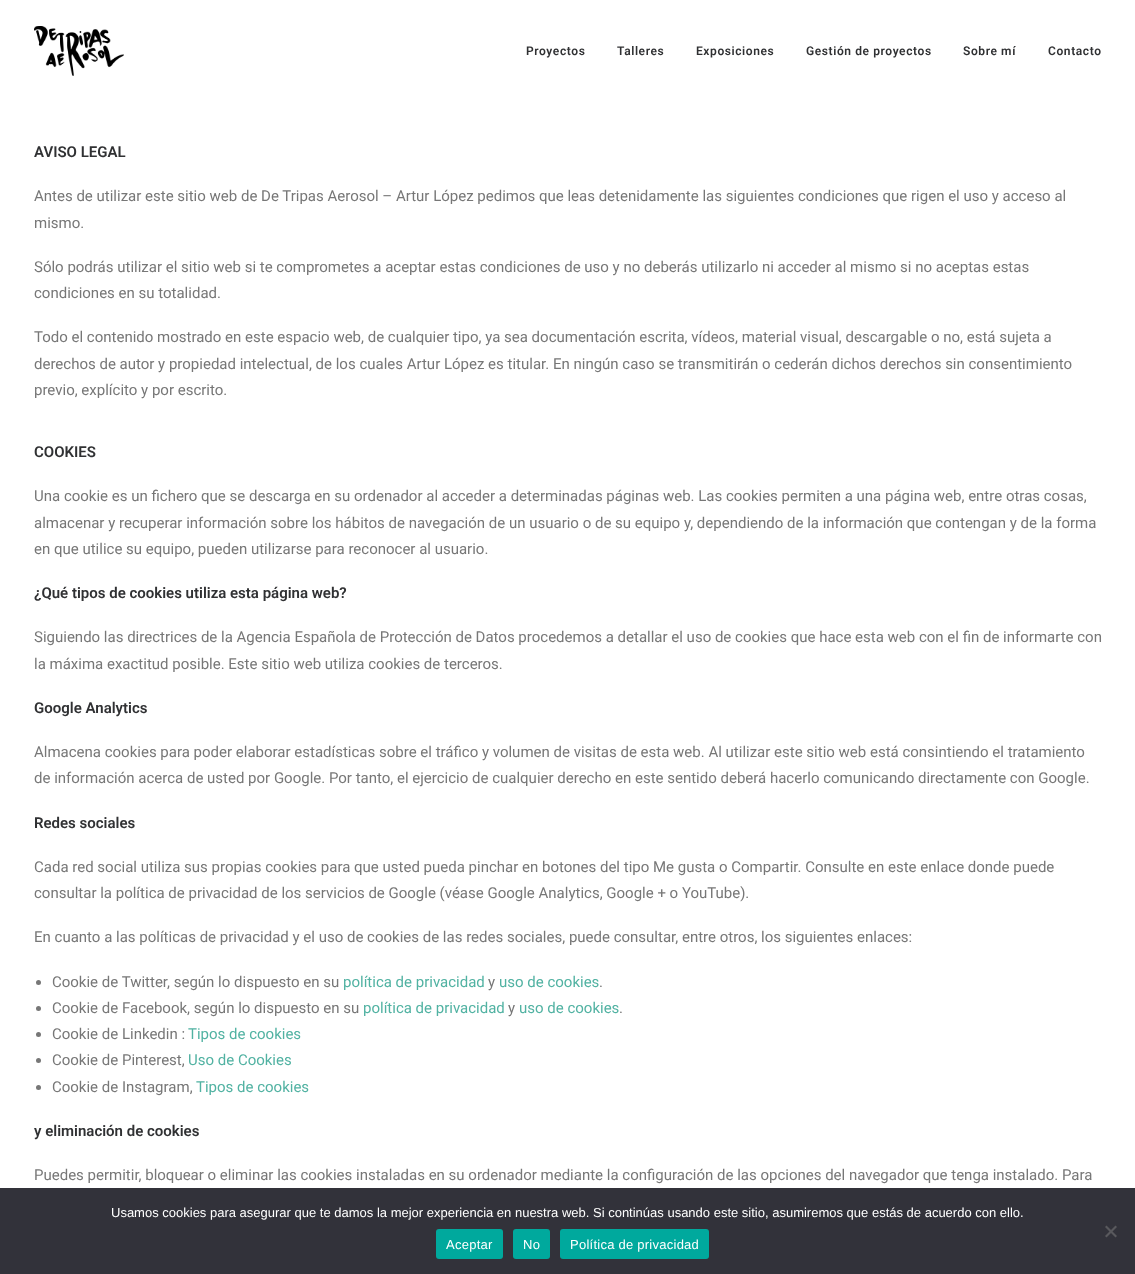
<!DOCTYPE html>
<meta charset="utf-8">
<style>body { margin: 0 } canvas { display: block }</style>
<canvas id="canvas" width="1135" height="1274"></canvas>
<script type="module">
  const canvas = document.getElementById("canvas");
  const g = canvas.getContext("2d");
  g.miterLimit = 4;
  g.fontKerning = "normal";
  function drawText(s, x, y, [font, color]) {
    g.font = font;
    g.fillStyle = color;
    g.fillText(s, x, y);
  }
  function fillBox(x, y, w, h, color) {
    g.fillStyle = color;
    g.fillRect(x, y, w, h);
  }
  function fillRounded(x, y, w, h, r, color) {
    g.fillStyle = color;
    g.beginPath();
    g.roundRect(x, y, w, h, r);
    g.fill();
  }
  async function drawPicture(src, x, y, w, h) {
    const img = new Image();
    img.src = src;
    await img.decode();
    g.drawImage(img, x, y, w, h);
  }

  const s1 = ["600 12px Roboto", "#303133"];
  const s2 = ["600 15px Roboto", "#303133"];
  const s3 = ["15px Roboto", "#777777"];
  const s4 = ["15px Roboto", "#51B2A2"];
  const s5 = ["13px Liberation Sans", "#FFFFFF"];

  fillBox(0, 0, 1135, 1274, "#FFFFFF");
  await drawPicture("pic1.png", 34, 26, 90, 50);
  g.letterSpacing = "0.6px";
  drawText("Proyectos", 526, 55, s1);
  drawText("Talleres", 617, 55, s1);
  drawText("Exposiciones", 696, 55, s1);
  drawText("Gestión de proyectos", 806, 55, s1);
  drawText("Sobre mí", 963, 55, s1);
  drawText("Contacto", 1048, 55, s1);
  g.letterSpacing = "0px";
  drawText("AVISO LEGAL", 34, 157, s2);
  drawText("Antes de utilizar este sitio web de De Tripas Aerosol – Artur López pedimos que leas detenidamente las siguientes condiciones que rigen el uso y acceso al", 34, 201, s3);
  drawText("mismo.", 34, 228, s3);
  drawText("Sólo podrás utilizar el sitio web si te comprometes a aceptar estas condiciones de uso y no deberás utilizarlo ni acceder al mismo si no aceptas estas", 34, 272, s3);
  drawText("condiciones en su totalidad.", 34, 298, s3);
  drawText("Todo el contenido mostrado en este espacio web, de cualquier tipo, ya sea documentación escrita, vídeos, material visual, descargable o no, está sujeta a", 34, 342, s3);
  drawText("derechos de autor y propiedad intelectual, de los cuales Artur López es titular. En ningún caso se transmitirán o cederán dichos derechos sin consentimiento", 34, 369, s3);
  drawText("previo, explícito y por escrito.", 34, 395, s3);
  drawText("COOKIES", 34, 457, s2);
  drawText("Una cookie es un fichero que se descarga en su ordenador al acceder a determinadas páginas web. Las cookies permiten a una página web, entre otras cosas,", 34, 501, s3);
  drawText("almacenar y recuperar información sobre los hábitos de navegación de un usuario o de su equipo y, dependiendo de la información que contengan y de la forma", 34, 528, s3);
  drawText("en que utilice su equipo, pueden utilizarse para reconocer al usuario.", 34, 554, s3);
  drawText("¿Qué tipos de cookies utiliza esta página web?", 34, 598, s2);
  drawText("Siguiendo las directrices de la Agencia Española de Protección de Datos procedemos a detallar el uso de cookies que hace esta web con el fin de informarte con", 34, 642, s3);
  drawText("la máxima exactitud posible. Este sitio web utiliza cookies de terceros.", 34, 669, s3);
  drawText("Google Analytics", 34, 713, s2);
  drawText("Almacena cookies para poder elaborar estadísticas sobre el tráfico y volumen de visitas de esta web. Al utilizar este sitio web está consintiendo el tratamiento", 34, 757, s3);
  drawText("de información acerca de usted por Google. Por tanto, el ejercicio de cualquier derecho en este sentido deberá hacerlo comunicando directamente con Google.", 34, 783, s3);
  drawText("Redes sociales", 34, 828, s2);
  drawText("Cada red social utiliza sus propias cookies para que usted pueda pinchar en botones del tipo Me gusta o Compartir. Consulte en este enlace donde puede", 34, 872, s3);
  drawText("consultar la política de privacidad de los servicios de Google (véase Google Analytics, Google + o YouTube).", 34, 898, s3);
  drawText("En cuanto a las políticas de privacidad y el uso de cookies de las redes sociales, puede consultar, entre otros, los siguientes enlaces:", 34, 942, s3);
  g.beginPath();
  g.arc(38.5, 982.5, 2.5, 0, Math.PI * 2);
  g.fill();
  drawText("Cookie de Twitter, según lo dispuesto en su", 52, 987, s3);
  drawText("política de privacidad", 343, 987, s4);
  drawText("y", 488, 987, s3);
  drawText("uso de cookies", 499, 987, s4);
  drawText(".", 599, 987, s3);
  g.beginPath();
  g.arc(38.5, 1008.5, 2.5, 0, Math.PI * 2);
  g.fill();
  drawText("Cookie de Facebook, según lo dispuesto en su", 52, 1013, s3);
  drawText("política de privacidad", 363, 1013, s4);
  drawText("y", 508, 1013, s3);
  drawText("uso de cookies", 519, 1013, s4);
  drawText(".", 619, 1013, s3);
  g.beginPath();
  g.arc(38.5, 1034.5, 2.5, 0, Math.PI * 2);
  g.fill();
  drawText("Cookie de Linkedin :", 52, 1039, s3);
  drawText("Tipos de cookies", 188, 1039, s4);
  g.fillStyle = "#777777";
  g.beginPath();
  g.arc(38.5, 1060.5, 2.5, 0, Math.PI * 2);
  g.fill();
  drawText("Cookie de Pinterest,", 52, 1065, s3);
  drawText("Uso de Cookies", 188, 1065, s4);
  g.fillStyle = "#777777";
  g.beginPath();
  g.arc(38.5, 1087.5, 2.5, 0, Math.PI * 2);
  g.fill();
  drawText("Cookie de Instagram,", 52, 1092, s3);
  drawText("Tipos de cookies", 196, 1092, s4);
  drawText("y eliminación de cookies", 34, 1136, s2);
  drawText("Puedes permitir, bloquear o eliminar las cookies instaladas en su ordenador mediante la configuración de las opciones del navegador que tenga instalado. Para", 34, 1180, s3);
  fillBox(0, 1188, 1135, 86, "#32323A");
  drawText("Usamos cookies para asegurar que te damos la mejor experiencia en nuestra web. Si continúas usando este sitio, asumiremos que estás de acuerdo con ello.", 111, 1217, s5);
  g.fillStyle = "#59595D";
  g.beginPath();
  g.moveTo(1115.5, 1225.5);
  g.lineTo(1117, 1227);
  g.lineTo(1106.5, 1237.5);
  g.lineTo(1105, 1236);
  g.closePath();
  g.fill();
  g.beginPath();
  g.moveTo(1105, 1227);
  g.lineTo(1106.5, 1225.5);
  g.lineTo(1117, 1236);
  g.lineTo(1115.5, 1237.5);
  g.closePath();
  g.fill();
  fillRounded(436, 1229, 67, 30, 3, "#00A99D");
  g.letterSpacing = "0.25px";
  drawText("Aceptar", 446, 1249, s5);
  fillRounded(513, 1229, 37, 30, 3, "#00A99D");
  drawText("No", 523, 1249, s5);
  fillRounded(560, 1229, 149, 30, 3, "#00A99D");
  drawText("Política de privacidad", 570, 1249, s5);
</script>
